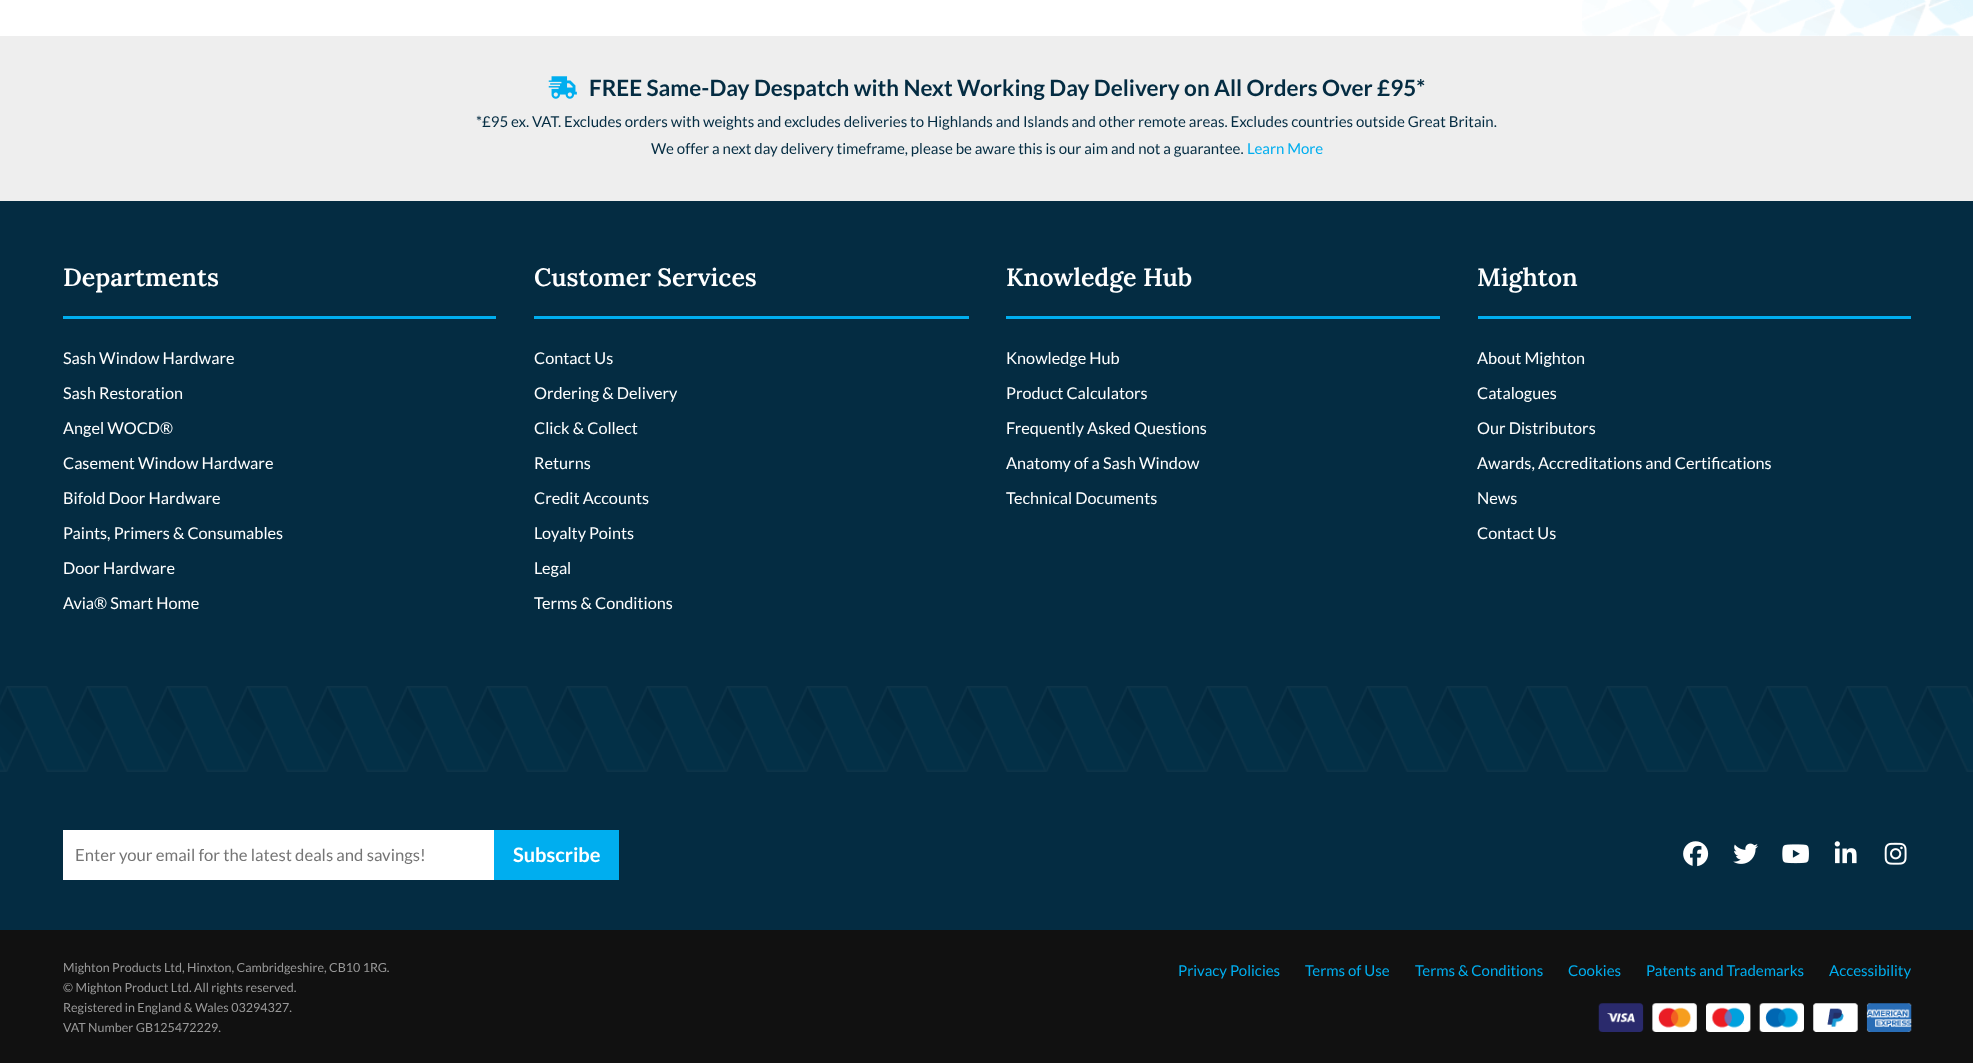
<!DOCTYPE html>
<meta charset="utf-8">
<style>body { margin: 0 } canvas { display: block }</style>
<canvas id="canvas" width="1973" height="1063"></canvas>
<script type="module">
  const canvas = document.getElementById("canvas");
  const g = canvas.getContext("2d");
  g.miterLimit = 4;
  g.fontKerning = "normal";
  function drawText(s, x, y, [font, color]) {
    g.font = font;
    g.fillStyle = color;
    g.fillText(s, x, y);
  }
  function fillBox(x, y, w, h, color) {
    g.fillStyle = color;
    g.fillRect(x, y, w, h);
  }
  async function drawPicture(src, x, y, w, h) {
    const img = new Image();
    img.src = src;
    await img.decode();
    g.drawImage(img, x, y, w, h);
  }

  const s1 = ["bold 22.5px Lato", "#042C42"];
  const s2 = ["15px Lato", "#042C42"];
  const s3 = ["15px Lato", "#00AEEF"];
  const s4 = ["600 25px Lora", "#FFFFFF"];
  const s5 = ["16.25px Lato", "#FFFFFF"];
  const s6 = ["16.7px Lato", "#757575"];
  const s7 = ["bold 20px Lato", "#FFFFFF"];
  const s8 = ["12.5px Lato", "#999999"];

  fillBox(0, 0, 1973, 1063, "#FFFFFF");
  await drawPicture("pic1.png", 1582, 0, 391, 36);
  fillBox(0, 36, 1973, 165, "#EEEEEE");
  await drawPicture("pic2.png", 548, 76, 29, 23);
  drawText("FREE Same-Day Despatch with Next Working Day Delivery on All Orders Over £95*", 589, 96, s1);
  drawText("*£95 ex. VAT. Excludes orders with weights and excludes deliveries to Highlands and Islands and other remote areas. Excludes countries outside Great Britain.", 476, 127, s2);
  drawText("We offer a next day delivery timeframe, please be aware this is our aim and not a guarantee.", 651, 154, s2);
  drawText("Learn More", 1247, 154, s3);
  fillBox(0, 201, 1973, 729, "#042C42");
  await drawPicture("pic3.png", 0, 686, 1973, 86);
  fillBox(63, 316, 433, 3, "#00AEEF");
  drawText("Departments", 63, 286, s4);
  drawText("Sash Window Hardware", 63, 364, s5);
  drawText("Sash Restoration", 63, 399, s5);
  drawText("Angel WOCD®", 63, 434, s5);
  drawText("Casement Window Hardware", 63, 469, s5);
  drawText("Bifold Door Hardware", 63, 504, s5);
  drawText("Paints, Primers & Consumables", 63, 539, s5);
  drawText("Door Hardware", 63, 574, s5);
  drawText("Avia® Smart Home", 63, 609, s5);
  fillBox(534, 316, 435, 3, "#00AEEF");
  drawText("Customer Services", 534, 286, s4);
  drawText("Contact Us", 534, 364, s5);
  drawText("Ordering & Delivery", 534, 399, s5);
  drawText("Click & Collect", 534, 434, s5);
  drawText("Returns", 534, 469, s5);
  drawText("Credit Accounts", 534, 504, s5);
  drawText("Loyalty Points", 534, 539, s5);
  drawText("Legal", 534, 574, s5);
  drawText("Terms & Conditions", 534, 609, s5);
  fillBox(1006, 316, 434, 3, "#00AEEF");
  drawText("Knowledge Hub", 1006, 286, s4);
  drawText("Knowledge Hub", 1006, 364, s5);
  drawText("Product Calculators", 1006, 399, s5);
  drawText("Frequently Asked Questions", 1006, 434, s5);
  drawText("Anatomy of a Sash Window", 1006, 469, s5);
  drawText("Technical Documents", 1006, 504, s5);
  fillBox(1478, 316, 433, 3, "#00AEEF");
  drawText("Mighton", 1477, 286, s4);
  drawText("About Mighton", 1477, 364, s5);
  drawText("Catalogues", 1477, 399, s5);
  drawText("Our Distributors", 1477, 434, s5);
  drawText("Awards, Accreditations and Certifications", 1477, 469, s5);
  drawText("News", 1477, 504, s5);
  drawText("Contact Us", 1477, 539, s5);
  fillBox(63, 830, 431, 50, "#FFFFFF");
  drawText("Enter your email for the latest deals and savings!", 75, 861, s6);
  fillBox(494, 830, 125, 50, "#00AEEF");
  drawText("Subscribe", 513, 862, s7);
  await drawPicture("pic4.png", 1683, 841, 26, 26);
  await drawPicture("pic5.png", 1733, 843, 25, 21);
  await drawPicture("pic6.png", 1782, 844, 27, 20);
  await drawPicture("pic7.png", 1834, 841, 23, 23);
  await drawPicture("pic8.png", 1884, 842, 23, 23);
  fillBox(0, 930, 1973, 133, "#111111");
  drawText("Mighton Products Ltd, Hinxton, Cambridgeshire, CB10 1RG.", 63, 972, s8);
  drawText("© Mighton Product Ltd. All rights reserved.", 63, 992, s8);
  drawText("Registered in England & Wales 03294327.", 63, 1012, s8);
  drawText("VAT Number GB125472229.", 63, 1032, s8);
  drawText("Privacy Policies", 1178, 976, s3);
  drawText("Terms of Use", 1305, 976, s3);
  drawText("Terms & Conditions", 1415, 976, s3);
  drawText("Cookies", 1568, 976, s3);
  drawText("Patents and Trademarks", 1646, 976, s3);
  drawText("Accessibility", 1829, 976, s3);
  await drawPicture("pic9.png", 1598, 1003, 314, 29);
</script>
